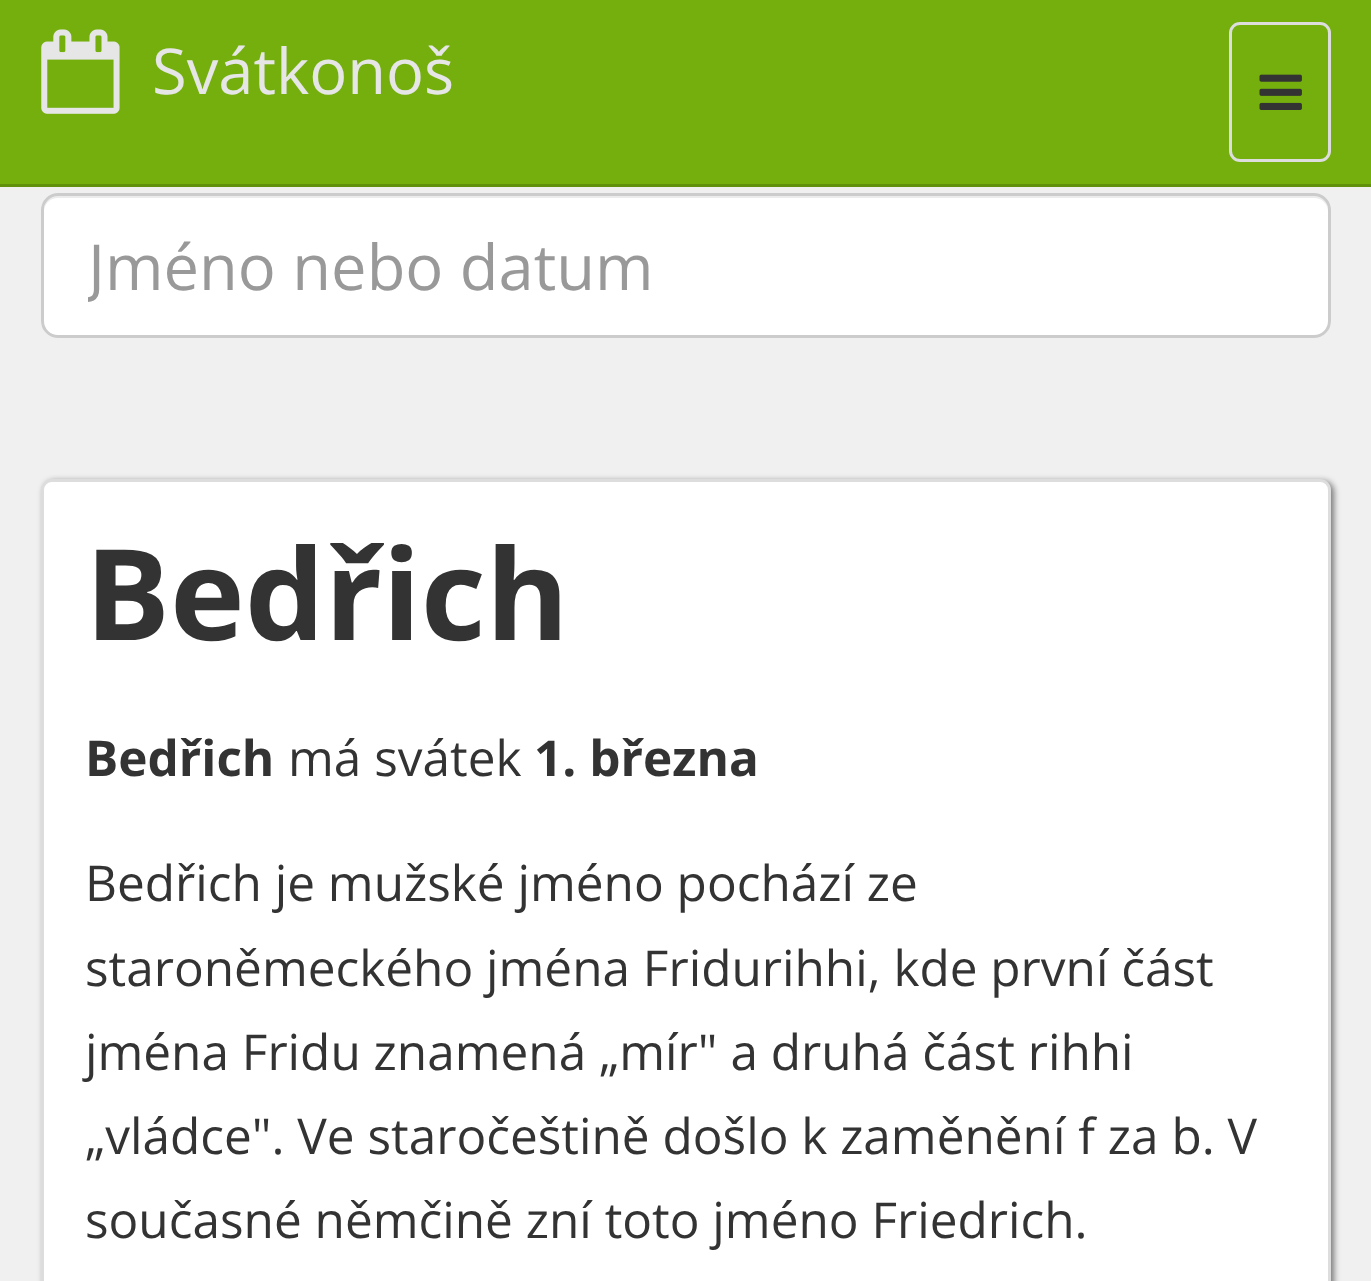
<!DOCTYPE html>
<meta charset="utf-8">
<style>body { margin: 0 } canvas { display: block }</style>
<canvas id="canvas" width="1371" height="1281"></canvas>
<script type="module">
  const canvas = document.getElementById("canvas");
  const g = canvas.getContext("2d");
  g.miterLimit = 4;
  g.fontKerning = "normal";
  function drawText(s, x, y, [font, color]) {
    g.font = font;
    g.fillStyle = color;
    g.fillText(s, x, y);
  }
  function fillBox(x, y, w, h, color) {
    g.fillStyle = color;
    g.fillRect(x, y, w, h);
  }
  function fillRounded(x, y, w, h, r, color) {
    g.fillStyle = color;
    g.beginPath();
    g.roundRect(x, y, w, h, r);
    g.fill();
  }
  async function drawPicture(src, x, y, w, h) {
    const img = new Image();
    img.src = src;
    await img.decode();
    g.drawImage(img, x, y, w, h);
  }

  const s1 = ["63.25px Open Sans", "#E6E6E6"];
  const s2 = ["63.25px Open Sans", "#999999"];
  const s3 = ["bold 126.5px Open Sans", "#333333"];
  const s4 = ["bold 49.5px Open Sans", "#333333"];
  const s5 = ["49.5px Open Sans", "#333333"];

  fillBox(0, 0, 1371, 1281, "#F0F0F0");
  fillBox(0, 0, 1371, 184, "#74AF0E");
  fillBox(0, 184, 1371, 3, "#60900C");
  await drawPicture("pic1.png", 41, 29, 79, 85);
  drawText("Svátkonoš", 152, 94, s1);
  g.beginPath();
  g.roundRect(1230.5, 23.5, 99, 137, 9.5);
  g.strokeStyle = "#DDDDDD";
  g.lineWidth = 3;
  g.stroke();
  await drawPicture("pic2.png", 1259, 74, 43, 36);
  fillRounded(41, 193, 1290, 145, 17, "#FFFFFF");
  g.fillStyle = "#ECECEC";
  g.beginPath();
  g.moveTo(58, 198);
  g.lineTo(1314, 198);
  g.bezierCurveTo(1322, 198, 1328, 204, 1328, 212);
  g.bezierCurveTo(1328, 203, 1324, 195, 1314, 195);
  g.lineTo(58, 195);
  g.bezierCurveTo(48, 195, 44, 203, 44, 212);
  g.bezierCurveTo(44, 204, 50, 198, 58, 198);
  g.closePath();
  g.fill();
  g.beginPath();
  g.roundRect(42.5, 194.5, 1287, 142, 15.5);
  g.strokeStyle = "#CCCCCC";
  g.stroke();
  g.save();
  g.beginPath();
  g.rect(88, 223, 1196, 88);
  g.clip();
  drawText("Jméno nebo datum", 88, 290, s2);
  g.restore();
  g.fillStyle = "rgba(0, 0, 0, 0.5)";
  g.filter = "blur(3px)";
  g.beginPath();
  g.roundRect(44, 481, 1290, 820, 11);
  g.fill();
  g.filter = "none";
  g.fillStyle = "#FFFFFF";
  g.beginPath();
  g.roundRect(42.5, 480.5, 1287, 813, 9.5);
  g.fill();
  g.strokeStyle = "#DDDDDD";
  g.stroke();
  drawText("Bedřich", 85, 640, s3);
  drawText("Bedřich", 85, 776, s4);
  drawText("má svátek", 288, 776, s5);
  drawText("1. března", 534, 776, s4);
  drawText("Bedřich je mužské jméno pochází ze", 85, 901, s5);
  drawText("staroněmeckého jména Fridurihhi, kde první část", 85, 986, s5);
  drawText("jména Fridu znamená „mír\" a druhá část rihhi", 85, 1070, s5);
  drawText("„vládce\". Ve staročeštině došlo k zaměnění f za b. V", 85, 1154, s5);
  drawText("současné němčině zní toto jméno Friedrich.", 85, 1238, s5);
</script>
